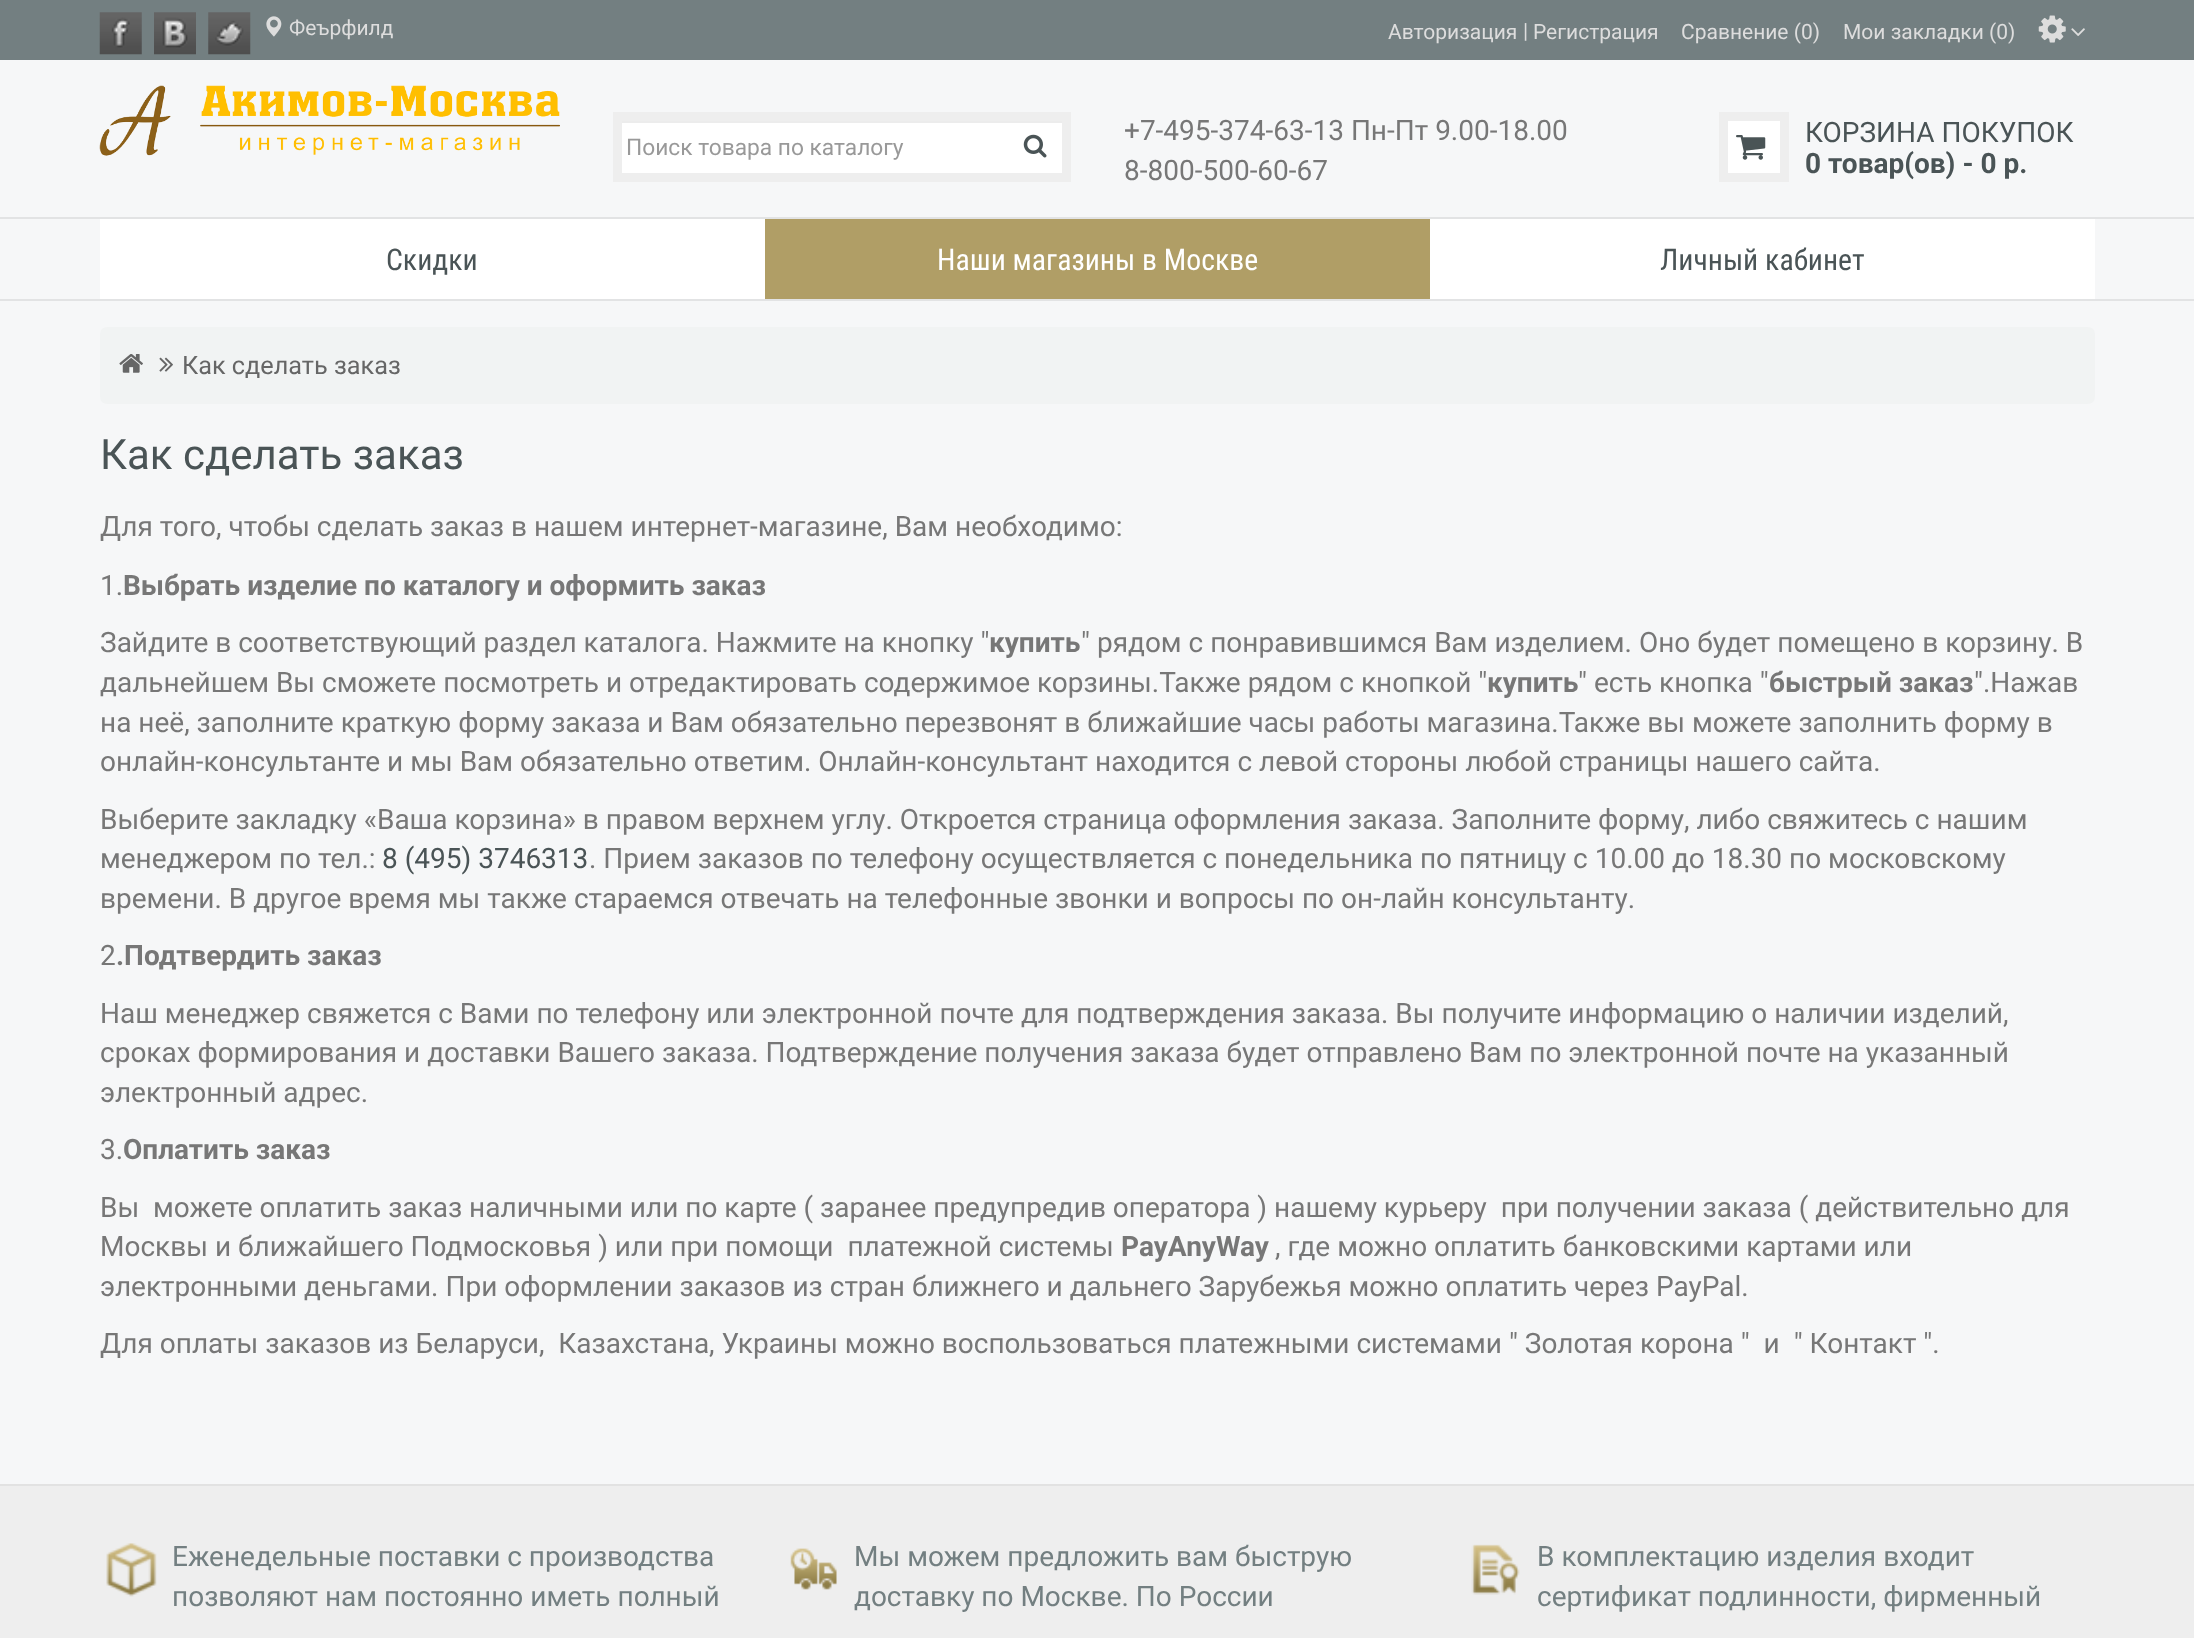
<!DOCTYPE html>
<meta charset="utf-8">
<style>body { margin: 0 } canvas { display: block }</style>
<canvas id="canvas" width="2194" height="1638"></canvas>
<script type="module">
  const canvas = document.getElementById("canvas");
  const g = canvas.getContext("2d");
  g.miterLimit = 4;
  g.fontKerning = "normal";
  function drawText(s, x, y, [font, color]) {
    g.font = font;
    g.fillStyle = color;
    g.fillText(s, x, y);
  }
  function fillBox(x, y, w, h, color) {
    g.fillStyle = color;
    g.fillRect(x, y, w, h);
  }
  function fillRounded(x, y, w, h, r, color) {
    g.fillStyle = color;
    g.beginPath();
    g.roundRect(x, y, w, h, r);
    g.fill();
  }
  async function drawPicture(src, x, y, w, h) {
    const img = new Image();
    img.src = src;
    await img.decode();
    g.drawImage(img, x, y, w, h);
  }

  const s1 = ["21px Roboto", "#DDDDDD"];
  const s2 = ["22.75px Roboto", "#999999"];
  const s3 = ["28px Roboto", "#777777"];
  const s4 = ["28px Roboto", "#4A5456"];
  const s5 = ["bold 28px Roboto", "#4A5456"];
  const s6 = ["29.75px Roboto Condensed", "#4A5456"];
  const s7 = ["29.75px Roboto Condensed", "#FFFFFF"];
  const s8 = ["25.25px Roboto", "#666666"];
  const s9 = ["42px Roboto", "#4A5456"];
  const s10 = ["bold 28px Roboto", "#777777"];
  const s11 = ["28px Roboto", "#737F81"];

  fillBox(0, 0, 2194, 1638, "#F6F7F8");
  fillBox(0, 0, 2194, 60, "#737F81");
  await drawPicture("pic1.png", 99, 12, 43, 43);
  await drawPicture("pic2.png", 154, 12, 42, 43);
  await drawPicture("pic3.png", 208, 12, 43, 43);
  await drawPicture("pic4.png", 266, 16, 16, 21);
  drawText("Феърфилд", 289, 35, s1);
  drawText("Авторизация", 1388, 39, s1);
  drawText("|", 1523, 38, s1);
  drawText("Регистрация", 1533, 39, s1);
  drawText("Сравнение (0)", 1681, 39, s1);
  drawText("Мои закладки (0)", 1843, 39, s1);
  await drawPicture("pic5.png", 2038, 15, 28, 28);
  await drawPicture("pic6.png", 2071, 28, 14, 8);
  await drawPicture("pic7.png", 99, 85, 461, 71);
  fillBox(622, 123, 440, 50, "#FFFFFF");
  fillBox(621, 121, 441, 2, "#ECECEC");
  g.strokeStyle = "#EEEEEE";
  g.lineWidth = 9;
  g.strokeRect(617.5, 116.5, 449, 61);
  drawText("Поиск товара по каталогу", 626, 155, s2);
  await drawPicture("pic8.png", 1023, 134, 24, 24);
  drawText("+7-495-374-63-13 Пн-Пт 9.00-18.00", 1124, 140, s3);
  drawText("8-800-500-60-67", 1124, 180, s3);
  g.fillStyle = "#FFFFFF";
  g.beginPath();
  g.rect(1723.5, 116.5, 61, 61);
  g.fill();
  g.stroke();
  await drawPicture("pic9.png", 1736, 135, 30, 25);
  drawText("КОРЗИНА ПОКУПОК", 1805, 142, s4);
  drawText("0 товар(ов) - 0 р.", 1805, 173, s5);
  fillBox(0, 217, 2194, 2, "#E2E3E4");
  fillBox(0, 299, 2194, 2, "#E2E3E4");
  fillBox(100, 219, 1995, 80, "#FFFFFF");
  drawText("Скидки", 386, 270, s6);
  fillBox(765, 219, 665, 80, "#B09E66");
  drawText("Наши магазины в Москве", 937, 270, s7);
  drawText("Личный кабинет", 1660, 270, s6);
  fillRounded(100, 327, 1995, 77, 7, "#F1F3F3");
  await drawPicture("pic10.png", 119, 354, 24, 19);
  await drawPicture("pic11.png", 159, 357, 14, 15);
  drawText("Как сделать заказ", 182, 374, s8);
  drawText("Как сделать заказ", 100, 469, s9);
  drawText("Для того, чтобы сделать заказ в нашем интернет-магазине, Вам необходимо:", 100, 536, s3);
  drawText("1.", 100, 595, s3);
  drawText("Выбрать изделие по каталогу и оформить заказ", 123, 595, s10);
  drawText("Зайдите в соответствующий раздел каталога. Нажмите на кнопку \"", 100, 652, s3);
  drawText("купить", 989, 652, s10);
  drawText("\" рядом с понравившимся Вам изделием. Оно будет помещено в корзину. В", 1081, 652, s3);
  drawText("дальнейшем Вы сможете посмотреть и отредактировать содержимое корзины.Также рядом с кнопкой \"", 100, 692, s3);
  drawText("купить", 1487, 692, s10);
  drawText("\" есть кнопка \"", 1578, 692, s3);
  drawText("быстрый заказ", 1769, 692, s10);
  drawText("\".Нажав", 1974, 692, s3);
  drawText("на неё, заполните краткую форму заказа и Вам обязательно перезвонят в ближайшие часы работы магазина.Также вы можете заполнить форму в", 100, 732, s3);
  drawText("онлайн-консультанте и мы Вам обязательно ответим. Онлайн-консультант находится с левой стороны любой страницы нашего сайта.", 100, 771, s3);
  drawText("Выберите закладку «Ваша корзина» в правом верхнем углу. Откроется страница оформления заказа. Заполните форму, либо свяжитесь с нашим", 100, 829, s3);
  drawText("менеджером по тел.:", 100, 868, s3);
  drawText("8 (495) 3746313", 382, 868, s4);
  drawText(". Прием заказов по телефону осуществляется с понедельника по пятницу с 10.00 до 18.30 по московскому", 589, 868, s3);
  drawText("времени. В другое время мы также стараемся отвечать на телефонные звонки и вопросы по он-лайн консультанту.", 100, 908, s3);
  drawText("2", 100, 965, s3);
  drawText(".Подтвердить заказ", 116, 965, s10);
  drawText("Наш менеджер свяжется с Вами по телефону или электронной почте для подтверждения заказа. Вы получите информацию о наличии изделий,", 100, 1023, s3);
  drawText("сроках формирования и доставки Вашего заказа. Подтверждение получения заказа будет отправлено Вам по электронной почте на указанный", 100, 1062, s3);
  drawText("электронный адрес.", 100, 1102, s3);
  drawText("3.", 100, 1159, s3);
  drawText("Оплатить заказ", 123, 1159, s10);
  drawText("Вы  можете оплатить заказ наличными или по карте ( заранее предупредив оператора ) нашему курьеру  при получении заказа ( действительно для", 100, 1217, s3);
  drawText("Москвы и ближайшего Подмосковья ) или при помощи  платежной системы", 100, 1256, s3);
  drawText("PayAnyWay", 1121, 1256, s10);
  drawText(", где можно оплатить банковскими картами или", 1275, 1256, s3);
  drawText("электронными деньгами. При оформлении заказов из стран ближнего и дальнего Зарубежья можно оплатить через PayPal.", 100, 1296, s3);
  drawText("Для оплаты заказов из Беларуси,  Казахстана, Украины можно воспользоваться платежными системами \" Золотая корона \"  и  \" Контакт \".", 100, 1353, s3);
  fillBox(0, 1486, 2194, 152, "#EEEEEE");
  fillBox(0, 1484, 2194, 2, "#E2E2E2");
  await drawPicture("pic12.png", 106, 1543, 51, 54);
  drawText("Еженедельные поставки с производства", 172, 1566, s11);
  drawText("позволяют нам постоянно иметь полный", 172, 1606, s11);
  await drawPicture("pic13.png", 790, 1548, 47, 42);
  drawText("Мы можем предложить вам быструю", 854, 1566, s11);
  drawText("доставку по Москве. По России", 854, 1606, s11);
  await drawPicture("pic14.png", 1471, 1544, 49, 51);
  drawText("В комплектацию изделия входит", 1537, 1566, s11);
  drawText("сертификат подлинности, фирменный", 1537, 1606, s11);
</script>
